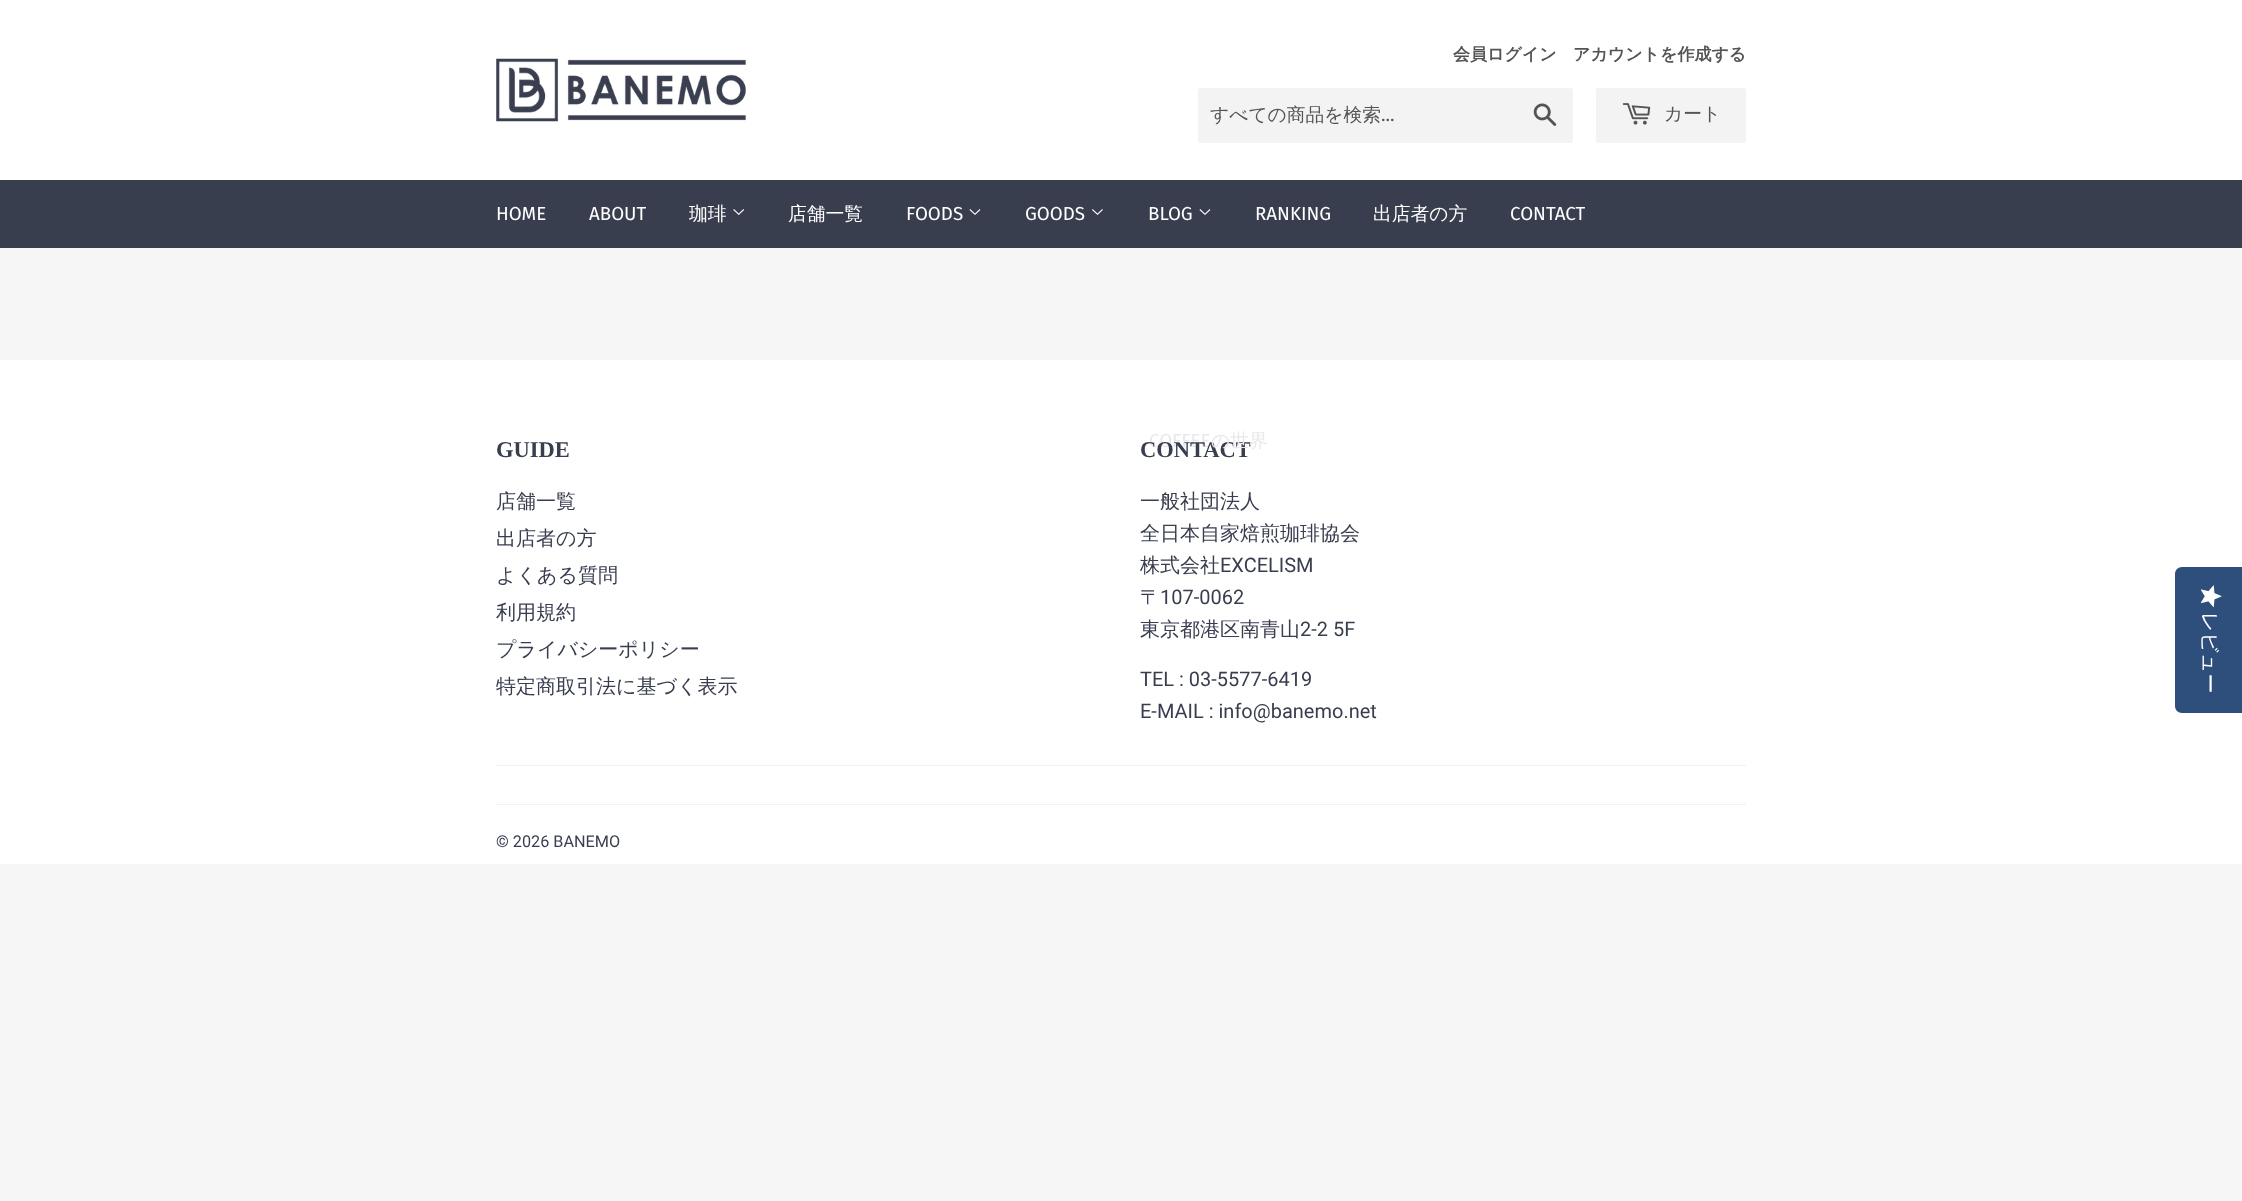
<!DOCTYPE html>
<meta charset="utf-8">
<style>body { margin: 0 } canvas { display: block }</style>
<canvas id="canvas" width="2242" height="1201"></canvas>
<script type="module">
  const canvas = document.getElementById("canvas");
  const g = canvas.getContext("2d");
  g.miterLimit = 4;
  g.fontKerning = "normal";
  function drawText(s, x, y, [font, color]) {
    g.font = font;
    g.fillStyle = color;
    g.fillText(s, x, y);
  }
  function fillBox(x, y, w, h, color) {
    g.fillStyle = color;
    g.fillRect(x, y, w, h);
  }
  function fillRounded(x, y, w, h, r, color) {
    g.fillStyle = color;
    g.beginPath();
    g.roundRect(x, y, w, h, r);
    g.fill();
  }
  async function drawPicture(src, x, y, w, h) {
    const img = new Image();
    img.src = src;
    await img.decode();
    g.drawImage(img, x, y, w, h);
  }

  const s1 = ["bold 17px WenQuanYi Zen Hei", "#545454"];
  const s2 = ["500 18.75px WenQuanYi Zen Hei", "#545454"];
  const s3 = ["18.75px Fira Sans", "#545454"];
  const s4 = ["18.75px Fira Sans", "#FFFFFF"];
  const s5 = ["500 18.75px WenQuanYi Zen Hei", "#FFFFFF"];
  const s6 = ["18.75px Fira Sans", "#E9E9EB"];
  const s7 = ["bold 22.5px Liberation Serif", "#393E4F"];
  const s8 = ["500 18.75px WenQuanYi Zen Hei", "#E9E9EB"];
  const s9 = ["500 20px WenQuanYi Zen Hei", "#393E4F"];
  const s10 = ["20px Roboto", "#393E4F"];
  const s11 = ["16.25px Roboto", "#393E4F"];

  fillBox(0, 0, 2242, 1201, "#F6F6F6");
  fillBox(0, 0, 2242, 180, "#FFFFFF");
  await drawPicture("pic1.png", 496, 58, 250, 64);
  drawText("会員ログイン", 1453, 60, s1);
  drawText("アカウントを作成する", 1573, 60, s1);
  fillRounded(1198, 88, 375, 55, 2.5, "#F3F3F3");
  drawText("すべての商品を検索", 1210, 121, s2);
  drawText("...", 1381, 121, s3);
  await drawPicture("pic2.png", 1533, 103, 24, 23);
  fillRounded(1596, 88, 150, 55, 2.5, "#F3F3F3");
  await drawPicture("pic3.png", 1622, 103, 29, 22);
  drawText("カート", 1664, 120, s2);
  fillBox(0, 180, 2242, 68, "#393E4F");
  drawText("HOME", 496, 220, s4);
  drawText("ABOUT", 589, 220, s4);
  drawText("珈琲", 689, 220, s5);
  await drawPicture("pic4.png", 733, 209, 11, 6);
  drawText("店舗一覧", 788, 220, s5);
  drawText("FOODS", 906, 220, s4);
  await drawPicture("pic5.png", 969, 209, 12, 6);
  drawText("GOODS", 1025, 220, s4);
  await drawPicture("pic6.png", 1092, 209, 11, 6);
  drawText("BLOG", 1148, 220, s4);
  await drawPicture("pic5.png", 1199, 209, 12, 6);
  fillBox(0, 360, 2242, 504, "#FFFFFF");
  drawText("COFFEE", 1149, 447, s6);
  drawText("CONTACT", 1140, 457, s7);
  drawText("の世界", 1211, 447, s8);
  drawText("RANKING", 1255, 220, s4);
  drawText("出店者の方", 1373, 220, s5);
  drawText("CONTACT", 1510, 220, s4);
  drawText("GUIDE", 496, 457, s7);
  drawText("店舗一覧", 496, 508, s9);
  drawText("出店者の方", 496, 545, s9);
  drawText("よくある質問", 496, 582, s9);
  drawText("利用規約", 496, 619, s9);
  drawText("プライバシーポリシー", 496, 656, s9);
  drawText("特定商取引法に基づく表示", 496, 693, s9);
  drawText("一般社団法人", 1140, 508, s9);
  drawText("全日本自家焙煎珈琲協会", 1140, 540, s9);
  drawText("株式会社", 1140, 572, s9);
  drawText("EXCELISM", 1220, 572, s10);
  drawText("〒", 1140, 604, s9);
  drawText("107-0062", 1160, 604, s10);
  drawText("東京都港区南青山", 1140, 636, s9);
  drawText("2-2 5F", 1300, 636, s10);
  drawText("TEL : 03-5577-6419", 1140, 686, s10);
  drawText("E-MAIL : info@banemo.net", 1140, 718, s10);
  fillBox(496, 765, 1250, 1, "#F2F2F2");
  fillBox(496, 804, 1250, 1, "#F2F2F2");
  drawText("© 2026 BANEMO", 496, 847, s11);
  g.fillStyle = "#2E4F7C";
  g.beginPath();
  g.moveTo(2242, 567);
  g.lineTo(2242, 713);
  g.lineTo(2182, 713);
  g.bezierCurveTo(2178, 713, 2175, 710, 2175, 706);
  g.lineTo(2175, 574);
  g.bezierCurveTo(2175, 570, 2178, 567, 2182, 567);
  g.closePath();
  g.fill();
  await drawPicture("pic7.png", 2200, 585, 22, 23);
  g.font = "500 20px WenQuanYi Zen Hei";
  g.fillStyle = "#FFFFFF";
  g.save();
  g.translate(2203, 612);
  g.rotate(90 * Math.PI / 180);
  g.fillText("レビュー", 0, 0);
  g.restore();
</script>
